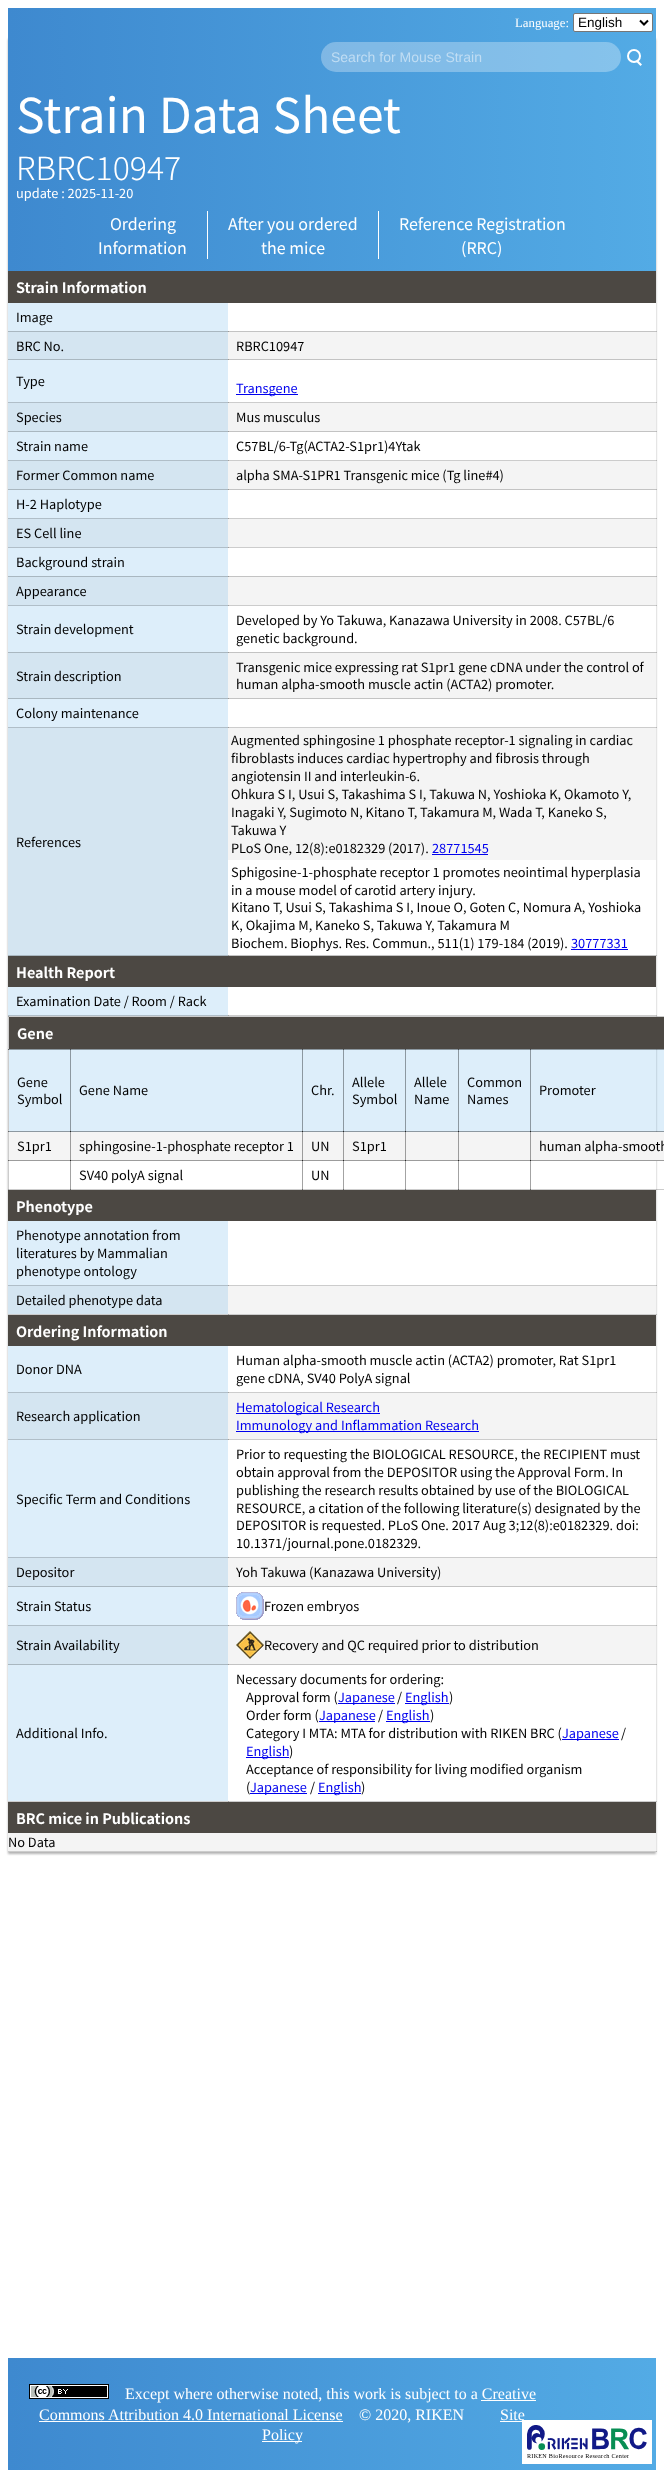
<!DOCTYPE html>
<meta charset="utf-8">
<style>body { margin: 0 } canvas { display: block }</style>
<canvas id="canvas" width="664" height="2470"></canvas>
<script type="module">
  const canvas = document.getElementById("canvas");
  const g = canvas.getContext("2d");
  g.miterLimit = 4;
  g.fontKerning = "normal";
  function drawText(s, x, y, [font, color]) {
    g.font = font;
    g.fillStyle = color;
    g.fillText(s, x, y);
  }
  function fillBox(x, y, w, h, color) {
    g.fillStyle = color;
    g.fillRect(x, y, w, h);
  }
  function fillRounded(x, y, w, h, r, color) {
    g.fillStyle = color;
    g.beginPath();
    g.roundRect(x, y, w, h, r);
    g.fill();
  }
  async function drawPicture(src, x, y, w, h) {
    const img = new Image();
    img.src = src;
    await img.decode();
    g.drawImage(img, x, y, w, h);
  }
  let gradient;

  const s1 = ["12.8px Liberation Serif", "#FFFFFF"];
  const s2 = ["13.5px Liberation Sans", "#000000"];
  const s3 = ["14px Liberation Sans", "#C0DDF3"];
  const s4 = ["48px Noto Sans JP", "#FFFFFF"];
  const s5 = ["300 32px Noto Sans JP", "#FFFFFF"];
  const s6 = ["12.8px Noto Sans JP", "#FFFFFF"];
  const s7 = ["16px Noto Sans JP", "#FFFFFF"];
  const s8 = ["bold 14.4px Noto Sans JP", "#FFFFFF"];
  const s9 = ["12.8px Noto Sans JP", "#000000"];
  const s10 = ["12.8px Noto Sans JP", "#0000EE"];
  const s11 = ["16px Liberation Serif", "#FFFFFF"];

  fillBox(0, 0, 664, 2470, "#FFFFFF");
  gradient = g.createLinearGradient(8, 23, 656, 22);
  gradient.addColorStop(0, "#3E89CF");
  gradient.addColorStop(1, "#53ABE5");
  g.fillStyle = gradient;
  g.fillRect(8, 8, 648, 29);
  drawText("Language:", 515, 27, s1);
  g.beginPath();
  g.roundRect(573.5, 13.5, 79, 18, 1.5);
  g.fill();
  g.strokeStyle = "#767676";
  g.stroke();
  g.beginPath();
  g.moveTo(640, 20.5);
  g.lineTo(644, 24.5);
  g.lineTo(648, 20.5);
  g.strokeStyle = "#000000";
  g.lineWidth = 2;
  g.stroke();
  drawText("English", 578, 27, s2);
  g.save();
  g.beginPath();
  g.moveTo(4, 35);
  g.lineTo(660, 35);
  g.lineTo(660, 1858);
  g.lineTo(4, 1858);
  g.closePath();
  g.moveTo(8, 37);
  g.lineTo(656, 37);
  g.lineTo(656, 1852);
  g.lineTo(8, 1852);
  g.closePath();
  g.clip("evenodd");
  g.fillStyle = "rgba(0, 0, 0, 0.3)";
  g.filter = "blur(1px)";
  g.beginPath();
  g.rect(8, 39, 648, 1815);
  g.fill();
  g.filter = "none";
  g.restore();
  gradient = g.createLinearGradient(8, 154, 656, 154);
  gradient.addColorStop(0, "#3E89CF");
  gradient.addColorStop(1, "#53ABE5");
  g.fillStyle = gradient;
  g.fillRect(8, 37, 648, 234);
  fillRounded(321, 42, 300, 30, 15, "rgba(255, 255, 255, 0.3)");
  drawText("Search for Mouse Strain", 331, 62, s3);
  g.beginPath();
  g.arc(634, 56, 6, 0, Math.PI * 2);
  g.strokeStyle = "#FFFFFF";
  g.stroke();
  g.fillStyle = "#FFFFFF";
  g.beginPath();
  g.moveTo(637.5, 60);
  g.lineTo(642, 64.5);
  g.lineTo(640.5, 66);
  g.lineTo(636, 61.5);
  g.closePath();
  g.fill();
  drawText("Strain Data Sheet", 16, 133, s4);
  drawText("RBRC10947", 16, 180, s5);
  drawText("update : 2025-11-20", 16, 198, s6);
  fillBox(207, 211, 1, 48, "#FFFFFF");
  drawText("Ordering", 110, 230, s7);
  drawText("Information", 98, 254, s7);
  fillBox(378, 211, 1, 48, "#FFFFFF");
  drawText("After you ordered", 228, 230, s7);
  drawText("the mice", 261, 254, s7);
  drawText("Reference Registration", 399, 230, s7);
  drawText("(RRC)", 461, 254, s7);
  fillBox(8, 271, 648, 32, "#4C4843");
  drawText("Strain Information", 16, 293, s8);
  fillBox(8, 303, 220, 28, "#DDEEFA");
  fillBox(228, 331, 428, 29, "#F4F4F4");
  fillBox(228, 331, 429, 1, "rgba(0, 0, 0, 0.2)");
  fillBox(8, 331, 220, 29, "#D4E5F1");
  fillBox(8, 331, 221, 1, "rgba(0, 0, 0, 0.2)");
  drawText("Image", 16, 322, s9);
  fillBox(228, 359, 429, 1, "rgba(0, 0, 0, 0.2)");
  fillBox(8, 359, 221, 1, "rgba(0, 0, 0, 0.2)");
  drawText("BRC No.", 16, 351, s9);
  drawText("RBRC10947", 236, 351, s9);
  fillBox(8, 360, 220, 43, "#DDEEFA");
  fillBox(228, 402, 429, 1, "rgba(0, 0, 0, 0.2)");
  fillBox(8, 402, 221, 1, "rgba(0, 0, 0, 0.2)");
  drawText("Type", 16, 386, s9);
  fillBox(236, 394, 62, 1, "#0000EE");
  drawText("Transgene", 236, 393, s10);
  fillBox(228, 403, 428, 29, "#F4F4F4");
  fillBox(8, 403, 220, 29, "#D4E5F1");
  fillBox(228, 431, 429, 1, "rgba(0, 0, 0, 0.2)");
  fillBox(8, 431, 221, 1, "rgba(0, 0, 0, 0.2)");
  drawText("Species", 16, 422, s9);
  drawText("Mus musculus", 236, 422, s9);
  fillBox(8, 432, 220, 29, "#DDEEFA");
  fillBox(228, 460, 429, 1, "rgba(0, 0, 0, 0.2)");
  fillBox(8, 460, 221, 1, "rgba(0, 0, 0, 0.2)");
  drawText("Strain name", 16, 451, s9);
  drawText("C57BL/6-Tg(ACTA2-S1pr1)4Ytak", 236, 451, s9);
  fillBox(228, 461, 428, 29, "#F4F4F4");
  fillBox(8, 461, 220, 29, "#D4E5F1");
  fillBox(228, 489, 429, 1, "rgba(0, 0, 0, 0.2)");
  fillBox(8, 489, 221, 1, "rgba(0, 0, 0, 0.2)");
  drawText("Former Common name", 16, 480, s9);
  drawText("alpha SMA-S1PR1 Transgenic mice (Tg line#4)", 236, 480, s9);
  fillBox(8, 490, 220, 29, "#DDEEFA");
  fillBox(228, 518, 429, 1, "rgba(0, 0, 0, 0.2)");
  fillBox(8, 518, 221, 1, "rgba(0, 0, 0, 0.2)");
  drawText("H-2 Haplotype", 16, 509, s9);
  fillBox(228, 519, 428, 28, "#F4F4F4");
  fillBox(8, 519, 220, 28, "#D4E5F1");
  fillBox(228, 547, 429, 1, "rgba(0, 0, 0, 0.2)");
  fillBox(8, 547, 220, 29, "#DDEEFA");
  fillBox(8, 547, 221, 1, "rgba(0, 0, 0, 0.2)");
  drawText("ES Cell line", 16, 538, s9);
  fillBox(228, 576, 428, 29, "#F4F4F4");
  fillBox(228, 576, 429, 1, "rgba(0, 0, 0, 0.2)");
  fillBox(8, 576, 220, 29, "#D4E5F1");
  fillBox(8, 576, 221, 1, "rgba(0, 0, 0, 0.2)");
  drawText("Background strain", 16, 567, s9);
  fillBox(228, 605, 429, 1, "rgba(0, 0, 0, 0.2)");
  fillBox(8, 605, 220, 47, "#DDEEFA");
  fillBox(8, 605, 221, 1, "rgba(0, 0, 0, 0.2)");
  drawText("Appearance", 16, 596, s9);
  fillBox(228, 652, 428, 47, "#F4F4F4");
  fillBox(228, 652, 429, 1, "rgba(0, 0, 0, 0.2)");
  fillBox(8, 652, 220, 47, "#D4E5F1");
  fillBox(8, 652, 221, 1, "rgba(0, 0, 0, 0.2)");
  drawText("Strain development", 16, 634, s9);
  drawText("Developed by Yo Takuwa, Kanazawa University in 2008. C57BL/6", 236, 625, s9);
  drawText("genetic background.", 236, 643, s9);
  fillBox(228, 698, 429, 1, "rgba(0, 0, 0, 0.2)");
  fillBox(8, 698, 221, 1, "rgba(0, 0, 0, 0.2)");
  drawText("Strain description", 16, 681, s9);
  drawText("Transgenic mice expressing rat S1pr1 gene cDNA under the control of", 236, 672, s9);
  drawText("human alpha-smooth muscle actin (ACTA2) promoter.", 236, 689, s9);
  fillBox(8, 699, 220, 29, "#DDEEFA");
  fillBox(228, 727, 429, 1, "rgba(0, 0, 0, 0.2)");
  fillBox(8, 727, 221, 1, "rgba(0, 0, 0, 0.2)");
  drawText("Colony maintenance", 16, 718, s9);
  fillBox(228, 728, 428, 228, "#F4F4F4");
  fillBox(8, 728, 220, 228, "#D4E5F1");
  fillBox(228, 955, 429, 1, "rgba(0, 0, 0, 0.2)");
  fillBox(8, 955, 221, 1, "rgba(0, 0, 0, 0.2)");
  drawText("References", 16, 847, s9);
  drawText("Augmented sphingosine 1 phosphate receptor-1 signaling in cardiac", 231, 745, s9);
  drawText("fibroblasts induces cardiac hypertrophy and fibrosis through", 231, 763, s9);
  drawText("angiotensin II and interleukin-6.", 231, 781, s9);
  drawText("Ohkura S I, Usui S, Takashima S I, Takuwa N, Yoshioka K, Okamoto Y,", 231, 799, s9);
  drawText("Inagaki Y, Sugimoto N, Kitano T, Takamura M, Wada T, Kaneko S,", 231, 817, s9);
  drawText("Takuwa Y", 231, 835, s9);
  drawText("PLoS One, 12(8):e0182329 (2017).", 231, 853, s9);
  drawText("28771545", 432, 853, s10);
  fillBox(432, 854, 56, 1, "#0000EE");
  fillBox(228, 860, 428, 95, "#FFFFFF");
  drawText("Sphigosine-1-phosphate receptor 1 promotes neointimal hyperplasia", 231, 877, s9);
  drawText("in a mouse model of carotid artery injury.", 231, 895, s9);
  drawText("Kitano T, Usui S, Takashima S I, Inoue O, Goten C, Nomura A, Yoshioka", 231, 912, s9);
  drawText("K, Okajima M, Kaneko S, Takuwa Y, Takamura M", 231, 930, s9);
  drawText("Biochem. Biophys. Res. Commun., 511(1) 179-184 (2019).", 231, 948, s9);
  drawText("30777331", 571, 948, s10);
  fillBox(571, 949, 57, 1, "#0000EE");
  fillBox(8, 956, 648, 31, "#4C4843");
  drawText("Health Report", 16, 978, s8);
  fillBox(8, 987, 220, 29, "#DDEEFA");
  fillBox(228, 1015, 429, 1, "rgba(0, 0, 0, 0.2)");
  fillBox(8, 1015, 221, 1, "rgba(0, 0, 0, 0.2)");
  drawText("Examination Date / Room / Rack", 16, 1006, s9);
  fillBox(9, 1017, 655, 32, "#4C4843");
  fillBox(8, 1016, 656, 1, "rgba(0, 0, 0, 0.2)");
  fillBox(9, 1049, 522, 83, "#DDEEFA");
  fillBox(531, 1049, 133, 83, "rgba(83, 171, 229, 0.2)");
  fillBox(530, 1049, 134, 1, "rgba(0, 0, 0, 0.2)");
  fillBox(530, 1131, 134, 1, "rgba(0, 0, 0, 0.2)");
  fillBox(9, 1132, 655, 29, "#F4F4F4");
  fillBox(530, 1160, 134, 1, "#C3C3C3");
  fillBox(530, 1189, 134, 1, "rgba(0, 0, 0, 0.2)");
  fillBox(530, 1160, 1, 30, "rgba(0, 0, 0, 0.2)");
  fillBox(458, 1160, 73, 1, "rgba(0, 0, 0, 0.2)");
  fillBox(530, 1160, 1, 30, "rgba(0, 0, 0, 0.2)");
  fillBox(530, 1160, 134, 1, "rgba(0, 0, 0, 0.2)");
  fillBox(530, 1131, 1, 30, "rgba(0, 0, 0, 0.2)");
  fillBox(458, 1131, 73, 1, "rgba(0, 0, 0, 0.2)");
  fillBox(530, 1131, 1, 30, "rgba(0, 0, 0, 0.2)");
  fillBox(530, 1131, 134, 1, "rgba(0, 0, 0, 0.2)");
  fillBox(530, 1049, 1, 83, "rgba(0, 0, 0, 0.2)");
  fillBox(458, 1049, 73, 1, "rgba(0, 0, 0, 0.2)");
  fillBox(530, 1049, 1, 83, "rgba(0, 0, 0, 0.2)");
  fillBox(458, 1189, 73, 1, "rgba(0, 0, 0, 0.2)");
  fillBox(458, 1160, 1, 30, "rgba(0, 0, 0, 0.2)");
  fillBox(405, 1160, 54, 1, "rgba(0, 0, 0, 0.2)");
  fillBox(458, 1160, 1, 30, "rgba(0, 0, 0, 0.2)");
  fillBox(458, 1160, 73, 1, "rgba(0, 0, 0, 0.2)");
  fillBox(458, 1131, 1, 30, "rgba(0, 0, 0, 0.2)");
  fillBox(405, 1131, 54, 1, "rgba(0, 0, 0, 0.2)");
  fillBox(458, 1131, 1, 30, "rgba(0, 0, 0, 0.2)");
  fillBox(458, 1131, 73, 1, "rgba(0, 0, 0, 0.2)");
  fillBox(458, 1049, 1, 83, "rgba(0, 0, 0, 0.2)");
  fillBox(405, 1049, 54, 1, "rgba(0, 0, 0, 0.2)");
  fillBox(458, 1049, 1, 83, "rgba(0, 0, 0, 0.2)");
  fillBox(405, 1189, 54, 1, "rgba(0, 0, 0, 0.2)");
  fillBox(405, 1160, 1, 30, "rgba(0, 0, 0, 0.2)");
  fillBox(343, 1160, 63, 1, "rgba(0, 0, 0, 0.2)");
  fillBox(405, 1160, 1, 30, "rgba(0, 0, 0, 0.2)");
  fillBox(405, 1160, 54, 1, "rgba(0, 0, 0, 0.2)");
  fillBox(405, 1131, 1, 30, "rgba(0, 0, 0, 0.2)");
  fillBox(343, 1131, 63, 1, "rgba(0, 0, 0, 0.2)");
  fillBox(405, 1131, 1, 30, "rgba(0, 0, 0, 0.2)");
  fillBox(405, 1131, 54, 1, "rgba(0, 0, 0, 0.2)");
  fillBox(405, 1049, 1, 83, "rgba(0, 0, 0, 0.2)");
  fillBox(343, 1049, 63, 1, "rgba(0, 0, 0, 0.2)");
  fillBox(405, 1049, 1, 83, "rgba(0, 0, 0, 0.2)");
  fillBox(343, 1189, 63, 1, "rgba(0, 0, 0, 0.2)");
  fillBox(343, 1160, 1, 30, "rgba(0, 0, 0, 0.2)");
  fillBox(302, 1160, 42, 1, "rgba(0, 0, 0, 0.2)");
  fillBox(343, 1160, 1, 30, "rgba(0, 0, 0, 0.2)");
  fillBox(343, 1160, 63, 1, "rgba(0, 0, 0, 0.2)");
  fillBox(343, 1131, 1, 30, "rgba(0, 0, 0, 0.2)");
  fillBox(302, 1131, 42, 1, "rgba(0, 0, 0, 0.2)");
  fillBox(343, 1131, 1, 30, "rgba(0, 0, 0, 0.2)");
  fillBox(343, 1131, 63, 1, "rgba(0, 0, 0, 0.2)");
  fillBox(343, 1049, 1, 83, "rgba(0, 0, 0, 0.2)");
  fillBox(302, 1049, 42, 1, "rgba(0, 0, 0, 0.2)");
  fillBox(343, 1049, 1, 83, "rgba(0, 0, 0, 0.2)");
  fillBox(302, 1189, 42, 1, "rgba(0, 0, 0, 0.2)");
  fillBox(302, 1160, 1, 30, "rgba(0, 0, 0, 0.2)");
  fillBox(70, 1160, 233, 1, "rgba(0, 0, 0, 0.2)");
  fillBox(302, 1160, 1, 30, "rgba(0, 0, 0, 0.2)");
  fillBox(302, 1160, 42, 1, "rgba(0, 0, 0, 0.2)");
  fillBox(302, 1131, 1, 30, "rgba(0, 0, 0, 0.2)");
  fillBox(70, 1131, 233, 1, "rgba(0, 0, 0, 0.2)");
  fillBox(302, 1131, 1, 30, "rgba(0, 0, 0, 0.2)");
  fillBox(302, 1131, 42, 1, "rgba(0, 0, 0, 0.2)");
  fillBox(302, 1049, 1, 83, "rgba(0, 0, 0, 0.2)");
  fillBox(70, 1049, 233, 1, "rgba(0, 0, 0, 0.2)");
  fillBox(302, 1049, 1, 83, "rgba(0, 0, 0, 0.2)");
  fillBox(70, 1189, 233, 1, "rgba(0, 0, 0, 0.2)");
  fillBox(70, 1160, 1, 30, "rgba(0, 0, 0, 0.2)");
  fillBox(8, 1160, 63, 1, "rgba(0, 0, 0, 0.2)");
  fillBox(70, 1160, 1, 30, "rgba(0, 0, 0, 0.2)");
  fillBox(70, 1160, 233, 1, "rgba(0, 0, 0, 0.2)");
  fillBox(70, 1131, 1, 30, "rgba(0, 0, 0, 0.2)");
  fillBox(8, 1131, 63, 1, "rgba(0, 0, 0, 0.2)");
  fillBox(70, 1131, 1, 30, "rgba(0, 0, 0, 0.2)");
  fillBox(70, 1131, 233, 1, "rgba(0, 0, 0, 0.2)");
  fillBox(70, 1049, 1, 83, "rgba(0, 0, 0, 0.2)");
  fillBox(8, 1049, 63, 1, "rgba(0, 0, 0, 0.2)");
  fillBox(70, 1049, 1, 83, "rgba(0, 0, 0, 0.2)");
  fillBox(8, 1189, 63, 1, "rgba(0, 0, 0, 0.2)");
  fillBox(8, 1160, 1, 30, "rgba(0, 0, 0, 0.2)");
  fillBox(8, 1160, 63, 1, "rgba(0, 0, 0, 0.2)");
  fillBox(8, 1131, 1, 30, "rgba(0, 0, 0, 0.2)");
  fillBox(8, 1131, 63, 1, "rgba(0, 0, 0, 0.2)");
  fillBox(8, 1049, 1, 83, "rgba(0, 0, 0, 0.2)");
  fillBox(8, 1049, 656, 1, "rgba(0, 0, 0, 0.2)");
  fillBox(8, 1016, 1, 34, "rgba(0, 0, 0, 0.2)");
  drawText("Gene", 17, 1039, s8);
  drawText("Gene", 17, 1087, s9);
  drawText("Symbol", 17, 1104, s9);
  drawText("Gene Name", 79, 1095, s9);
  drawText("Chr.", 311, 1095, s9);
  drawText("Allele", 352, 1087, s9);
  drawText("Symbol", 352, 1104, s9);
  drawText("Allele", 414, 1087, s9);
  drawText("Name", 414, 1104, s9);
  drawText("Common", 467, 1087, s9);
  drawText("Names", 467, 1104, s9);
  drawText("Promoter", 539, 1095, s9);
  drawText("S1pr1", 17, 1151, s9);
  drawText("sphingosine-1-phosphate receptor 1", 79, 1151, s9);
  drawText("UN", 311, 1151, s9);
  drawText("S1pr1", 352, 1151, s9);
  drawText("human alpha-smooth", 539, 1151, s9);
  drawText("SV40 polyA signal", 79, 1180, s9);
  drawText("UN", 311, 1180, s9);
  fillBox(8, 1190, 648, 31, "#4C4843");
  drawText("Phenotype", 16, 1212, s8);
  fillBox(8, 1221, 220, 65, "#DDEEFA");
  fillBox(228, 1285, 429, 1, "rgba(0, 0, 0, 0.2)");
  fillBox(8, 1285, 221, 1, "rgba(0, 0, 0, 0.2)");
  drawText("Phenotype annotation from", 16, 1240, s9);
  drawText("literatures by Mammalian", 16, 1258, s9);
  drawText("phenotype ontology", 16, 1276, s9);
  fillBox(228, 1286, 428, 28, "#F4F4F4");
  fillBox(8, 1286, 220, 28, "#D4E5F1");
  fillBox(228, 1314, 429, 1, "rgba(0, 0, 0, 0.2)");
  fillBox(8, 1314, 221, 1, "rgba(0, 0, 0, 0.2)");
  drawText("Detailed phenotype data", 16, 1305, s9);
  fillBox(8, 1315, 648, 31, "#4C4843");
  drawText("Ordering Information", 16, 1337, s8);
  fillBox(8, 1346, 220, 47, "#DDEEFA");
  fillBox(228, 1392, 429, 1, "rgba(0, 0, 0, 0.2)");
  fillBox(8, 1392, 221, 1, "rgba(0, 0, 0, 0.2)");
  drawText("Donor DNA", 16, 1374, s9);
  drawText("Human alpha-smooth muscle actin (ACTA2) promoter, Rat S1pr1", 236, 1365, s9);
  drawText("gene cDNA, SV40 PolyA signal", 236, 1383, s9);
  fillBox(228, 1393, 428, 46, "#F4F4F4");
  fillBox(8, 1393, 220, 46, "#D4E5F1");
  fillBox(228, 1439, 429, 1, "rgba(0, 0, 0, 0.2)");
  fillBox(8, 1439, 220, 119, "#DDEEFA");
  fillBox(8, 1439, 221, 1, "rgba(0, 0, 0, 0.2)");
  drawText("Research application", 16, 1421, s9);
  fillBox(236, 1413, 144, 1, "#0000EE");
  drawText("Hematological Research", 236, 1412, s10);
  fillBox(236, 1431, 243, 1, "#0000EE");
  drawText("Immunology and Inflammation Research", 236, 1430, s10);
  fillBox(228, 1557, 429, 1, "rgba(0, 0, 0, 0.2)");
  fillBox(8, 1557, 221, 1, "rgba(0, 0, 0, 0.2)");
  drawText("Specific Term and Conditions", 16, 1504, s9);
  drawText("Prior to requesting the BIOLOGICAL RESOURCE, the RECIPIENT must", 236, 1459, s9);
  drawText("obtain approval from the DEPOSITOR using the Approval Form. In", 236, 1477, s9);
  drawText("publishing the research results obtained by use of the BIOLOGICAL", 236, 1495, s9);
  drawText("RESOURCE, a citation of the following literature(s) designated by the", 236, 1513, s9);
  drawText("DEPOSITOR is requested. PLoS One. 2017 Aug 3;12(8):e0182329. doi:", 236, 1530, s9);
  drawText("10.1371/journal.pone.0182329.", 236, 1548, s9);
  fillBox(228, 1558, 428, 29, "#F4F4F4");
  fillBox(8, 1558, 220, 29, "#D4E5F1");
  fillBox(228, 1586, 429, 1, "rgba(0, 0, 0, 0.2)");
  fillBox(8, 1586, 221, 1, "rgba(0, 0, 0, 0.2)");
  drawText("Depositor", 16, 1577, s9);
  drawText("Yoh Takuwa (Kanazawa University)", 236, 1577, s9);
  fillBox(8, 1587, 220, 39, "#DDEEFA");
  fillBox(228, 1625, 429, 1, "rgba(0, 0, 0, 0.2)");
  fillBox(8, 1625, 221, 1, "rgba(0, 0, 0, 0.2)");
  drawText("Strain Status", 16, 1611, s9);
  await drawPicture("pic1.png", 236, 1592, 28, 28);
  drawText("Frozen embryos", 264, 1611, s9);
  fillBox(228, 1626, 428, 39, "#F4F4F4");
  fillBox(8, 1626, 220, 39, "#D4E5F1");
  fillBox(228, 1664, 429, 1, "rgba(0, 0, 0, 0.2)");
  fillBox(8, 1664, 221, 1, "rgba(0, 0, 0, 0.2)");
  drawText("Strain Availability", 16, 1650, s9);
  await drawPicture("pic2.png", 236, 1631, 28, 28);
  drawText("Recovery and QC required prior to distribution", 264, 1650, s9);
  fillBox(8, 1665, 220, 136, "#DDEEFA");
  fillBox(228, 1801, 429, 1, "rgba(0, 0, 0, 0.2)");
  fillBox(8, 1801, 221, 1, "rgba(0, 0, 0, 0.2)");
  drawText("Additional Info.", 16, 1738, s9);
  drawText("Necessary documents for ordering:", 236, 1684, s9);
  drawText("Approval form (", 246, 1702, s9);
  fillBox(338, 1703, 57, 1, "#0000EE");
  drawText("Japanese", 338, 1702, s10);
  drawText("/", 397, 1702, s9);
  fillBox(405, 1703, 44, 1, "#0000EE");
  drawText("English", 405, 1702, s10);
  drawText(")", 449, 1702, s9);
  drawText("Order form (", 246, 1720, s9);
  fillBox(319, 1721, 56, 1, "#0000EE");
  drawText("Japanese", 319, 1720, s10);
  drawText("/", 378, 1720, s9);
  fillBox(386, 1721, 44, 1, "#0000EE");
  drawText("English", 386, 1720, s10);
  drawText(")", 430, 1720, s9);
  drawText("Category I MTA: MTA for distribution with RIKEN BRC (", 246, 1738, s9);
  fillBox(562, 1739, 57, 1, "#0000EE");
  drawText("Japanese", 562, 1738, s10);
  drawText("/", 621, 1738, s9);
  fillBox(246, 1757, 43, 1, "#0000EE");
  drawText("English", 246, 1756, s10);
  drawText(")", 289, 1756, s9);
  drawText("Acceptance of responsibility for living modified organism", 246, 1774, s9);
  drawText("(", 246, 1792, s9);
  fillBox(250, 1793, 57, 1, "#0000EE");
  drawText("Japanese", 250, 1792, s10);
  drawText("/", 310, 1792, s9);
  fillBox(318, 1793, 43, 1, "#0000EE");
  drawText("English", 318, 1792, s10);
  drawText(")", 361, 1792, s9);
  fillBox(8, 1802, 648, 31, "#4C4843");
  drawText("BRC mice in Publications", 16, 1824, s8);
  fillBox(8, 1833, 648, 18, "#F4F4F4");
  fillBox(8, 1851, 649, 1, "rgba(0, 0, 0, 0.2)");
  drawText("No Data", 8, 1847, s9);
  gradient = g.createLinearGradient(8, 2414, 656, 2414);
  gradient.addColorStop(0, "#3E89CF");
  gradient.addColorStop(1, "#53ABE5");
  g.fillStyle = gradient;
  g.fillRect(8, 2358, 648, 112);
  await drawPicture("pic3.png", 29, 2384, 80, 15);
  drawText("Except where otherwise noted, this work is subject to a Creative", 125, 2399, s11);
  drawText("Commons Attribution 4.0 International License", 39, 2420, s11);
  fillBox(481, 2400, 55, 1, "#FFFFFF");
  fillBox(39, 2421, 304, 1, "#FFFFFF");
  drawText("© 2020, RIKEN", 359, 2420, s11);
  drawText("Site", 500, 2420, s11);
  fillBox(500, 2421, 25, 1, "#FFFFFF");
  fillBox(262, 2441, 40, 1, "#FFFFFF");
  drawText("Policy", 262, 2440, s11);
  fillBox(522, 2420, 130, 44, "#FFFFFF");
  await drawPicture("pic4.png", 527, 2425, 120, 33);
</script>
